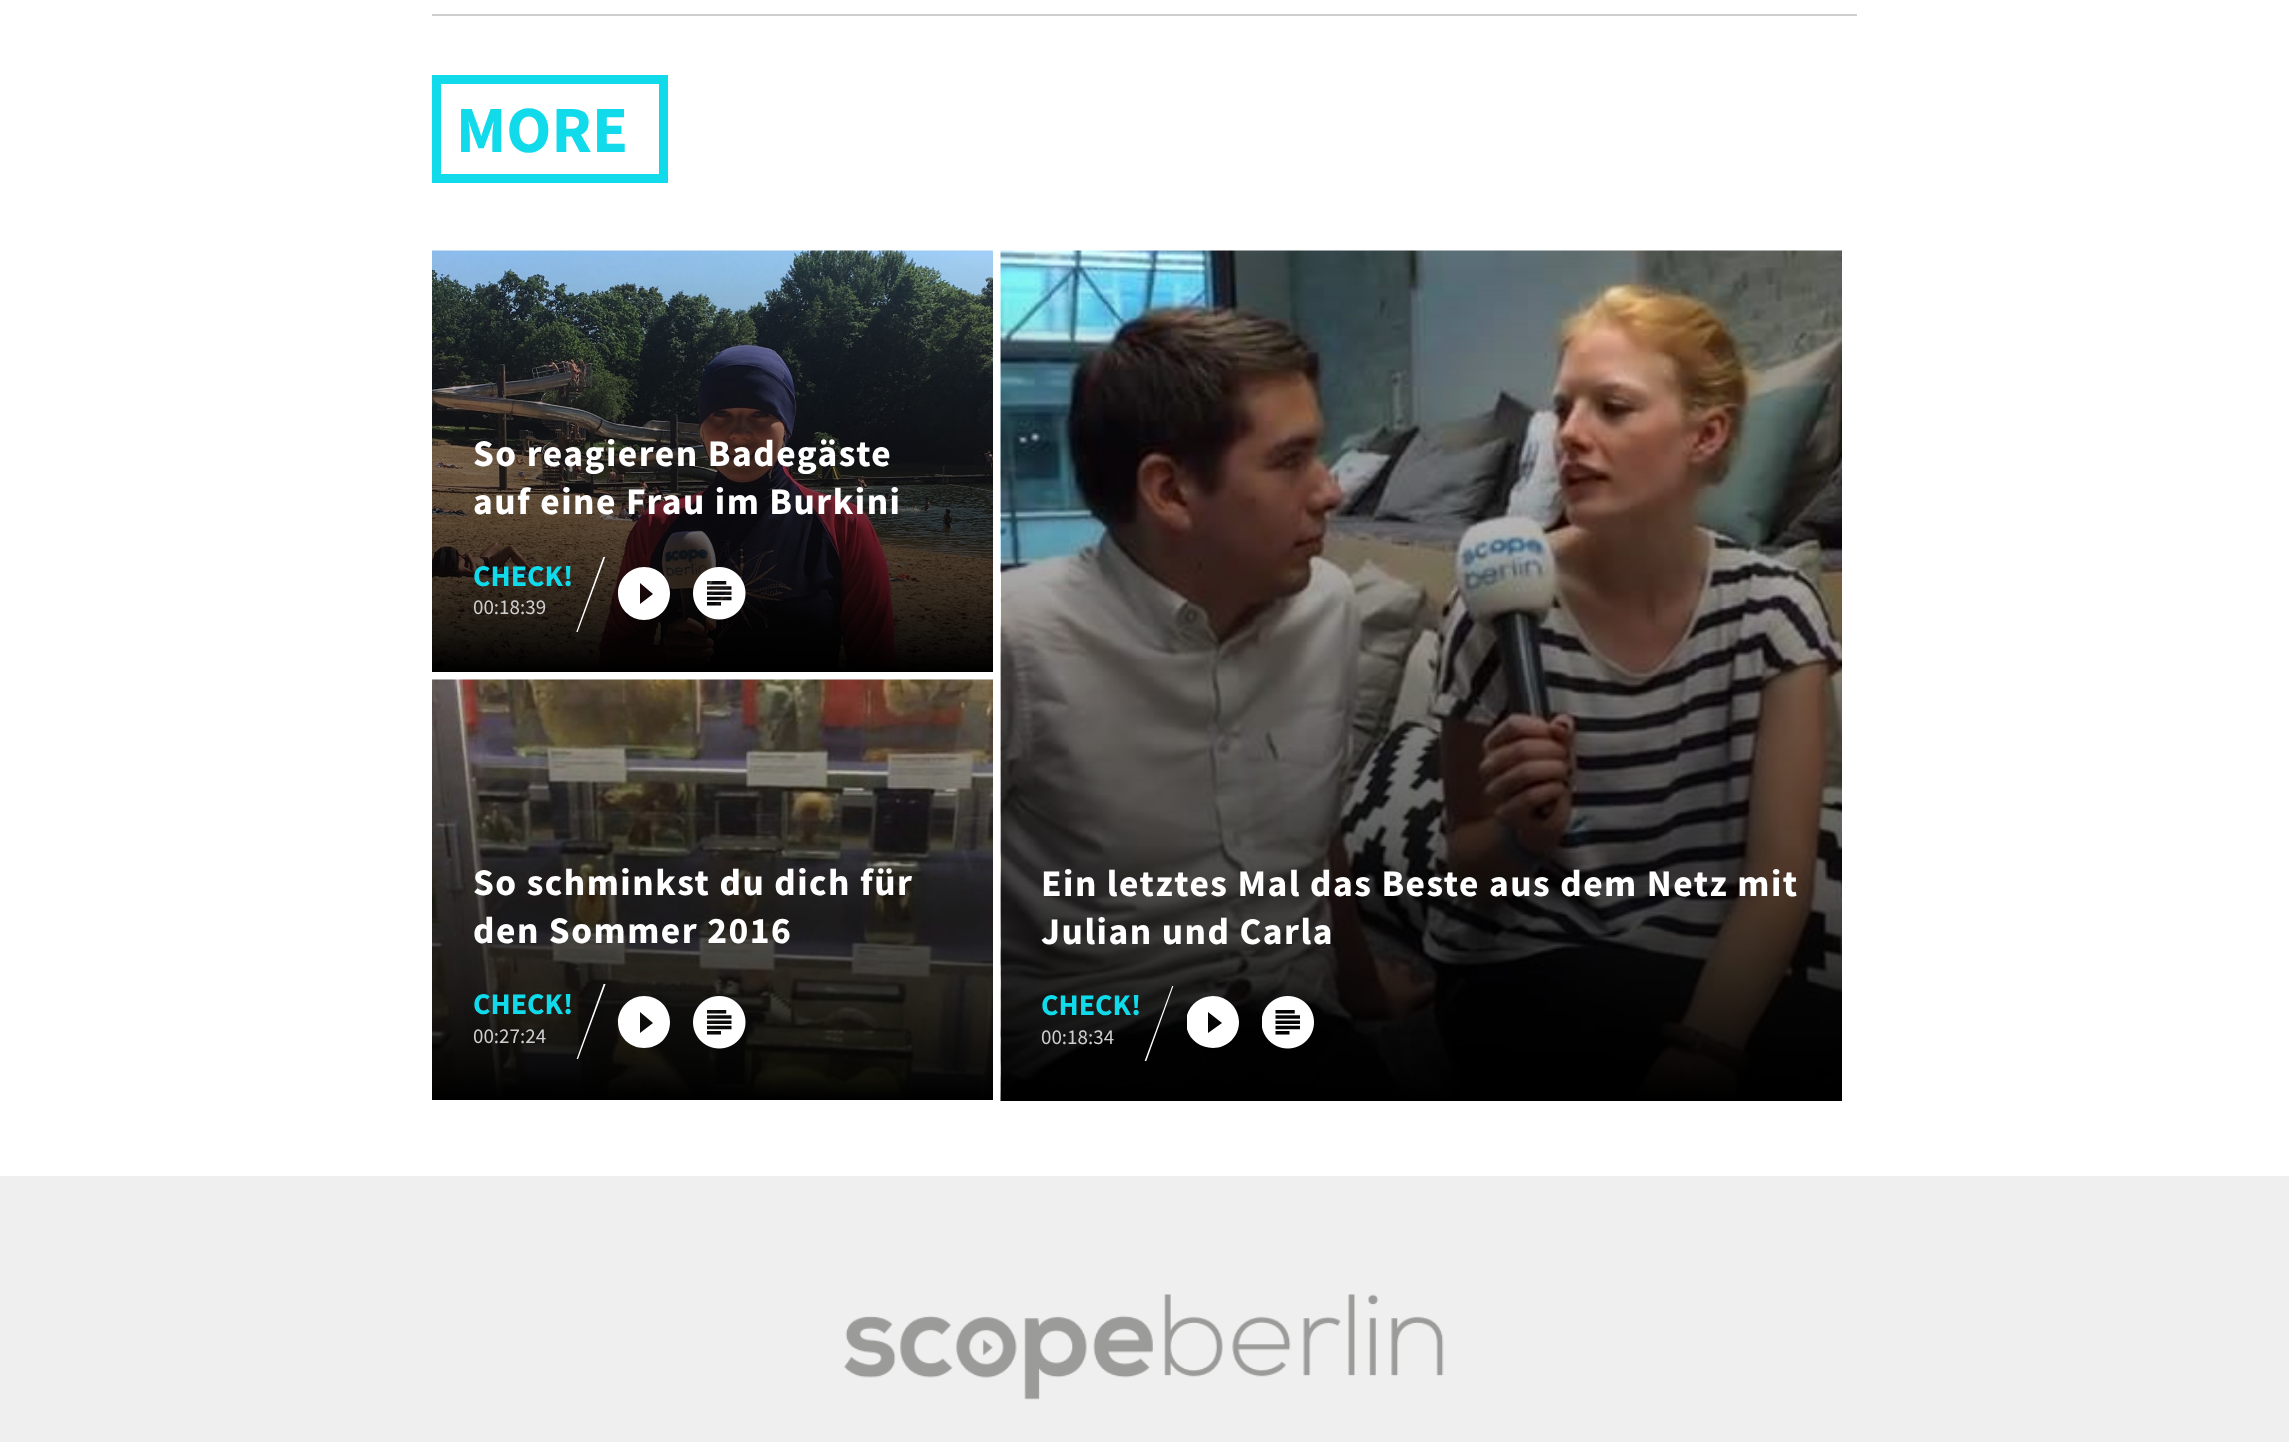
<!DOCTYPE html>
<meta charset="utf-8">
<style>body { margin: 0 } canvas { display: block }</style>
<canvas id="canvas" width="2289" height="1442"></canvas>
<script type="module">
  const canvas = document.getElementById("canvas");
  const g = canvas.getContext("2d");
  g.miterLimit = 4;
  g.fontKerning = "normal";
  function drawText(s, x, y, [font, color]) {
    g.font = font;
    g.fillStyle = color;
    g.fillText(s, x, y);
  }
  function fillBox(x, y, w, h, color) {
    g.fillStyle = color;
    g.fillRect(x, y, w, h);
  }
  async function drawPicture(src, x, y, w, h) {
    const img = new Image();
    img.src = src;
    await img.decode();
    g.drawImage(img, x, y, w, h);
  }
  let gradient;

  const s1 = ["bold 66px Source Sans Pro", "#11DAEA"];
  const s2 = ["bold 37.5px Source Sans Pro", "#FFFFFF"];
  const s3 = ["bold 30px Source Sans Pro", "#11DAEA"];
  const s4 = ["21px Source Sans Pro", "#CECECE"];

  fillBox(0, 0, 2289, 1442, "#FFFFFF");
  fillBox(432, 14, 1425, 2, "#CECECE");
  g.strokeStyle = "#11DAEA";
  g.lineWidth = 9;
  g.strokeRect(436.5, 79.5, 227, 99);
  drawText("MORE", 456, 152, s1);
  await drawPicture("pic1.png", 432, 250, 561, 422);
  g.letterSpacing = "1.5px";
  drawText("So reagieren Badegäste", 473, 466, s2);
  drawText("auf eine Frau im Burkini", 473, 514, s2);
  g.letterSpacing = "0px";
  drawText("CHECK!", 473, 586, s3);
  drawText("00:18:39", 473, 614, s4);
  g.save();
  g.beginPath();
  g.rect(573, 557, 45, 75);
  g.clip();
  g.fillStyle = "#FFFFFF";
  g.beginPath();
  g.moveTo(555, 691);
  g.lineTo(612, 533);
  g.lineTo(614, 533);
  g.lineTo(556, 691);
  g.closePath();
  g.fill();
  g.restore();
  g.fillStyle = "#FFFFFF";
  g.beginPath();
  g.moveTo(644, 620);
  g.bezierCurveTo(659, 620, 670, 608, 670, 593);
  g.bezierCurveTo(670, 579, 659, 567, 644, 567);
  g.bezierCurveTo(630, 567, 618, 579, 618, 593);
  g.bezierCurveTo(618, 608, 630, 620, 644, 620);
  g.closePath();
  g.moveTo(653, 594);
  g.lineTo(640, 604);
  g.lineTo(640, 583);
  g.closePath();
  g.fill("evenodd");
  await drawPicture("pic2.png", 693, 567, 53, 53);
  await drawPicture("pic3.png", 432, 679, 561, 419);
  gradient = g.createLinearGradient(713, 680, 713, 1100);
  gradient.addColorStop(0, "rgba(0, 0, 0, 0)");
  gradient.addColorStop(0.77, "rgba(0, 0, 0, 0.7)");
  gradient.addColorStop(1, "#000000");
  g.fillStyle = gradient;
  g.fillRect(432, 690, 561, 410);
  g.letterSpacing = "1.5px";
  drawText("So schminkst du dich für", 473, 895, s2);
  drawText("den Sommer 2016", 473, 943, s2);
  g.letterSpacing = "0px";
  drawText("CHECK!", 473, 1014, s3);
  drawText("00:27:24", 473, 1043, s4);
  g.save();
  g.beginPath();
  g.rect(573, 984, 45, 75);
  g.clip();
  g.fillStyle = "#FFFFFF";
  g.beginPath();
  g.moveTo(555, 1119);
  g.lineTo(612, 961);
  g.lineTo(614, 961);
  g.lineTo(556, 1119);
  g.closePath();
  g.fill();
  g.restore();
  g.fillStyle = "#FFFFFF";
  g.beginPath();
  g.moveTo(644, 1048);
  g.bezierCurveTo(659, 1048, 670, 1037, 670, 1022);
  g.bezierCurveTo(670, 1008, 659, 996, 644, 996);
  g.bezierCurveTo(630, 996, 618, 1008, 618, 1022);
  g.bezierCurveTo(618, 1037, 630, 1048, 644, 1048);
  g.closePath();
  g.moveTo(653, 1023);
  g.lineTo(640, 1033);
  g.lineTo(640, 1012);
  g.closePath();
  g.fill("evenodd");
  await drawPicture("pic4.png", 693, 996, 53, 53);
  await drawPicture("pic5.png", 1000, 250, 842, 851);
  g.letterSpacing = "1.5px";
  drawText("Ein letztes Mal das Beste aus dem Netz mit", 1041, 896, s2);
  drawText("Julian und Carla", 1041, 944, s2);
  g.letterSpacing = "0px";
  drawText("CHECK!", 1041, 1015, s3);
  drawText("00:18:34", 1041, 1044, s4);
  g.save();
  g.beginPath();
  g.rect(1142, 986, 45, 75);
  g.clip();
  g.fillStyle = "#FFFFFF";
  g.beginPath();
  g.moveTo(1123, 1120);
  g.lineTo(1181, 962);
  g.lineTo(1182, 962);
  g.lineTo(1125, 1120);
  g.closePath();
  g.fill();
  g.restore();
  g.save();
  g.beginPath();
  g.rect(1187, 996, 52, 53);
  g.clip();
  g.fillStyle = "#FFFFFF";
  g.beginPath();
  g.moveTo(1213, 1048);
  g.bezierCurveTo(1227, 1048, 1239, 1037, 1239, 1022);
  g.bezierCurveTo(1239, 1008, 1227, 996, 1213, 996);
  g.bezierCurveTo(1198, 996, 1186, 1008, 1186, 1022);
  g.bezierCurveTo(1186, 1037, 1198, 1048, 1213, 1048);
  g.closePath();
  g.moveTo(1222, 1023);
  g.lineTo(1208, 1033);
  g.lineTo(1208, 1012);
  g.closePath();
  g.fill("evenodd");
  g.restore();
  await drawPicture("pic6.png", 1262, 996, 52, 53);
  fillBox(0, 1176, 2289, 266, "#EFEFEF");
  await drawPicture("pic7.png", 844, 1294, 600, 106);
</script>
